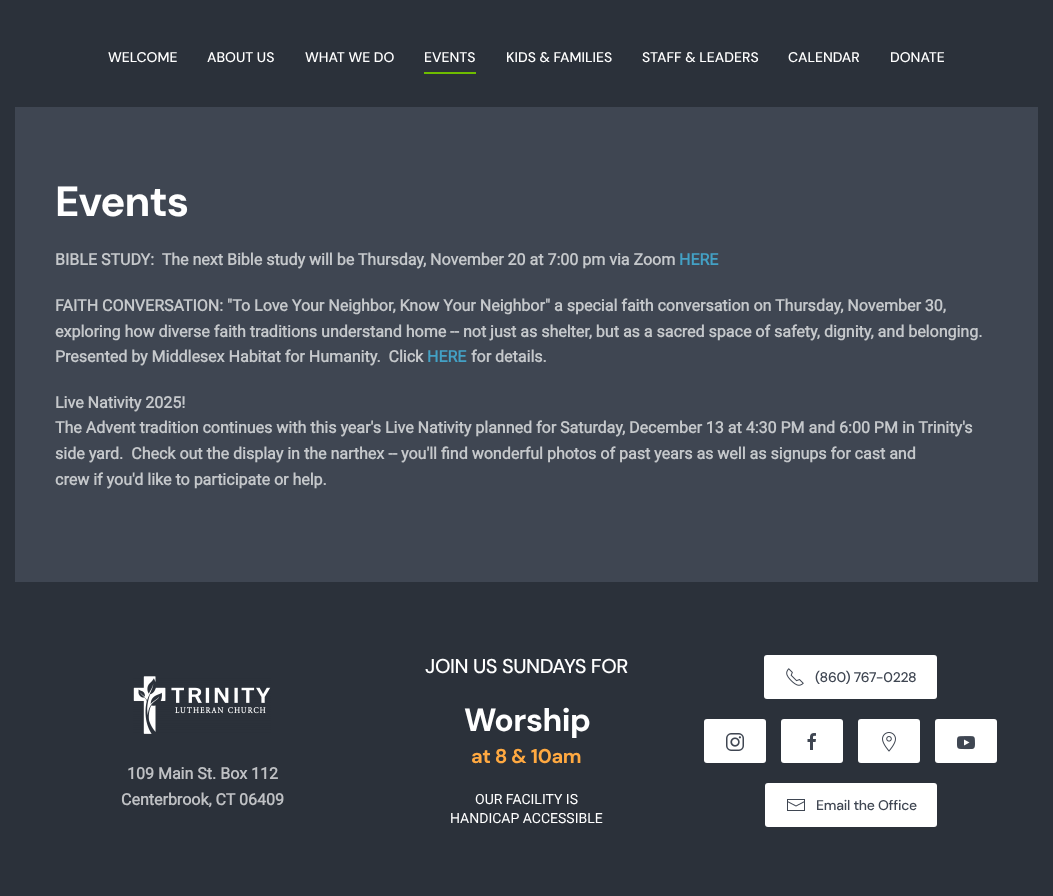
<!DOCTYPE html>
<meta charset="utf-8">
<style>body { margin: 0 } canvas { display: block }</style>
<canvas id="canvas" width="1053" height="896"></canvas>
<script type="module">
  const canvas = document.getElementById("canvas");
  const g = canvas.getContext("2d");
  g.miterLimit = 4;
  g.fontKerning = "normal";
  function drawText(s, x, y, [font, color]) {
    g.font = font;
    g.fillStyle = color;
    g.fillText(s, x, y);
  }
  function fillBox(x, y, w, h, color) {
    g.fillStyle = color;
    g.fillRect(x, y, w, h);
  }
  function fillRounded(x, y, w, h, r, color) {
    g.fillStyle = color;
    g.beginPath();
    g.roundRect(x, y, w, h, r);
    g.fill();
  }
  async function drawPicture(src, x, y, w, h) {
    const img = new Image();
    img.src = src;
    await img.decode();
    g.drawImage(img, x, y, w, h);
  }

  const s1 = ["500 14px DM Sans", "#FFFFFF"];
  const s2 = ["bold 42px DM Sans", "#FFFFFF"];
  const s3 = ["bold 16px Roboto", "#C5C8CB"];
  const s4 = ["bold 16px Roboto", "#43A1C5"];
  const s5 = ["bold 16px Roboto", "#BFC1C4"];
  const s6 = ["500 20px DM Sans", "#FFFFFF"];
  const s7 = ["bold 32px DM Sans", "#FFFFFF"];
  const s8 = ["bold 20px DM Sans", "#FFA941"];
  const s9 = ["14px Roboto", "#FFFFFF"];
  const s10 = ["500 14px DM Sans", "#3F4652"];

  fillBox(0, 0, 1053, 896, "#2B313A");
  drawText("WELCOME", 108, 62, s1);
  drawText("ABOUT US", 207, 62, s1);
  drawText("WHAT WE DO", 305, 62, s1);
  drawText("EVENTS", 424, 62, s1);
  fillBox(424, 72, 52, 2, "#6EBC00");
  drawText("KIDS & FAMILIES", 506, 62, s1);
  drawText("STAFF & LEADERS", 642, 62, s1);
  drawText("CALENDAR", 788, 62, s1);
  drawText("DONATE", 890, 62, s1);
  fillBox(15, 107, 1023, 475, "#3F4652");
  g.letterSpacing = "-1px";
  drawText("Events", 55, 216, s2);
  g.letterSpacing = "0px";
  drawText("BIBLE STUDY:  The next Bible study will be Thursday, November 20 at 7:00 pm via Zoom", 55, 265, s3);
  drawText("HERE", 679, 265, s4);
  drawText("FAITH CONVERSATION: \"To Love Your Neighbor, Know Your Neighbor\" a special faith conversation on Thursday, November 30,", 55, 311, s3);
  drawText("exploring how diverse faith traditions understand home -- not just as shelter, but as a sacred space of safety, dignity, and belonging.", 55, 337, s3);
  drawText("Presented by Middlesex Habitat for Humanity.  Click", 55, 362, s3);
  drawText("HERE", 427, 362, s4);
  drawText("for details.", 471, 362, s3);
  drawText("Live Nativity 2025!", 55, 408, s3);
  drawText("The Advent tradition continues with this year's Live Nativity planned for Saturday, December 13 at 4:30 PM and 6:00 PM in Trinity's", 55, 433, s3);
  drawText("side yard.  Check out the display in the narthex -- you'll find wonderful photos of past years as well as signups for cast and", 55, 459, s3);
  drawText("crew if you'd like to participate or help.", 55, 485, s3);
  await drawPicture("pic1.png", 133, 676, 138, 58);
  drawText("109 Main St. Box 112", 127, 779, s5);
  drawText("Centerbrook, CT 06409", 121, 805, s5);
  g.letterSpacing = "-0.4px";
  drawText("JOIN US SUNDAYS FOR", 425, 673, s6);
  g.letterSpacing = "-0.5px";
  drawText("Worship", 464, 731, s7);
  g.letterSpacing = "-0.4px";
  drawText("at 8 & 10am", 471, 763, s8);
  g.letterSpacing = "0px";
  drawText("OUR FACILITY IS", 475, 804, s9);
  drawText("HANDICAP ACCESSIBLE", 450, 823, s9);
  fillRounded(764, 655, 173, 44, 3, "#FFFFFF");
  await drawPicture("pic2.png", 786, 668, 18, 18);
  g.letterSpacing = "-0.25px";
  drawText("(860) 767-0228", 815, 682, s10);
  fillRounded(704, 719, 62, 44, 3, "#FFFFFF");
  await drawPicture("pic3.png", 726, 733, 18, 18);
  fillRounded(781, 719, 62, 44, 3, "#FFFFFF");
  await drawPicture("pic4.png", 807, 733, 9, 17);
  fillRounded(858, 719, 62, 44, 3, "#FFFFFF");
  await drawPicture("pic5.png", 882, 732, 14, 20);
  fillRounded(935, 719, 62, 44, 3, "#FFFFFF");
  await drawPicture("pic6.png", 957, 736, 18, 14);
  fillRounded(765, 783, 172, 44, 3, "#FFFFFF");
  await drawPicture("pic7.png", 787, 799, 18, 12);
  drawText("Email the Office", 816, 810, s10);
</script>
